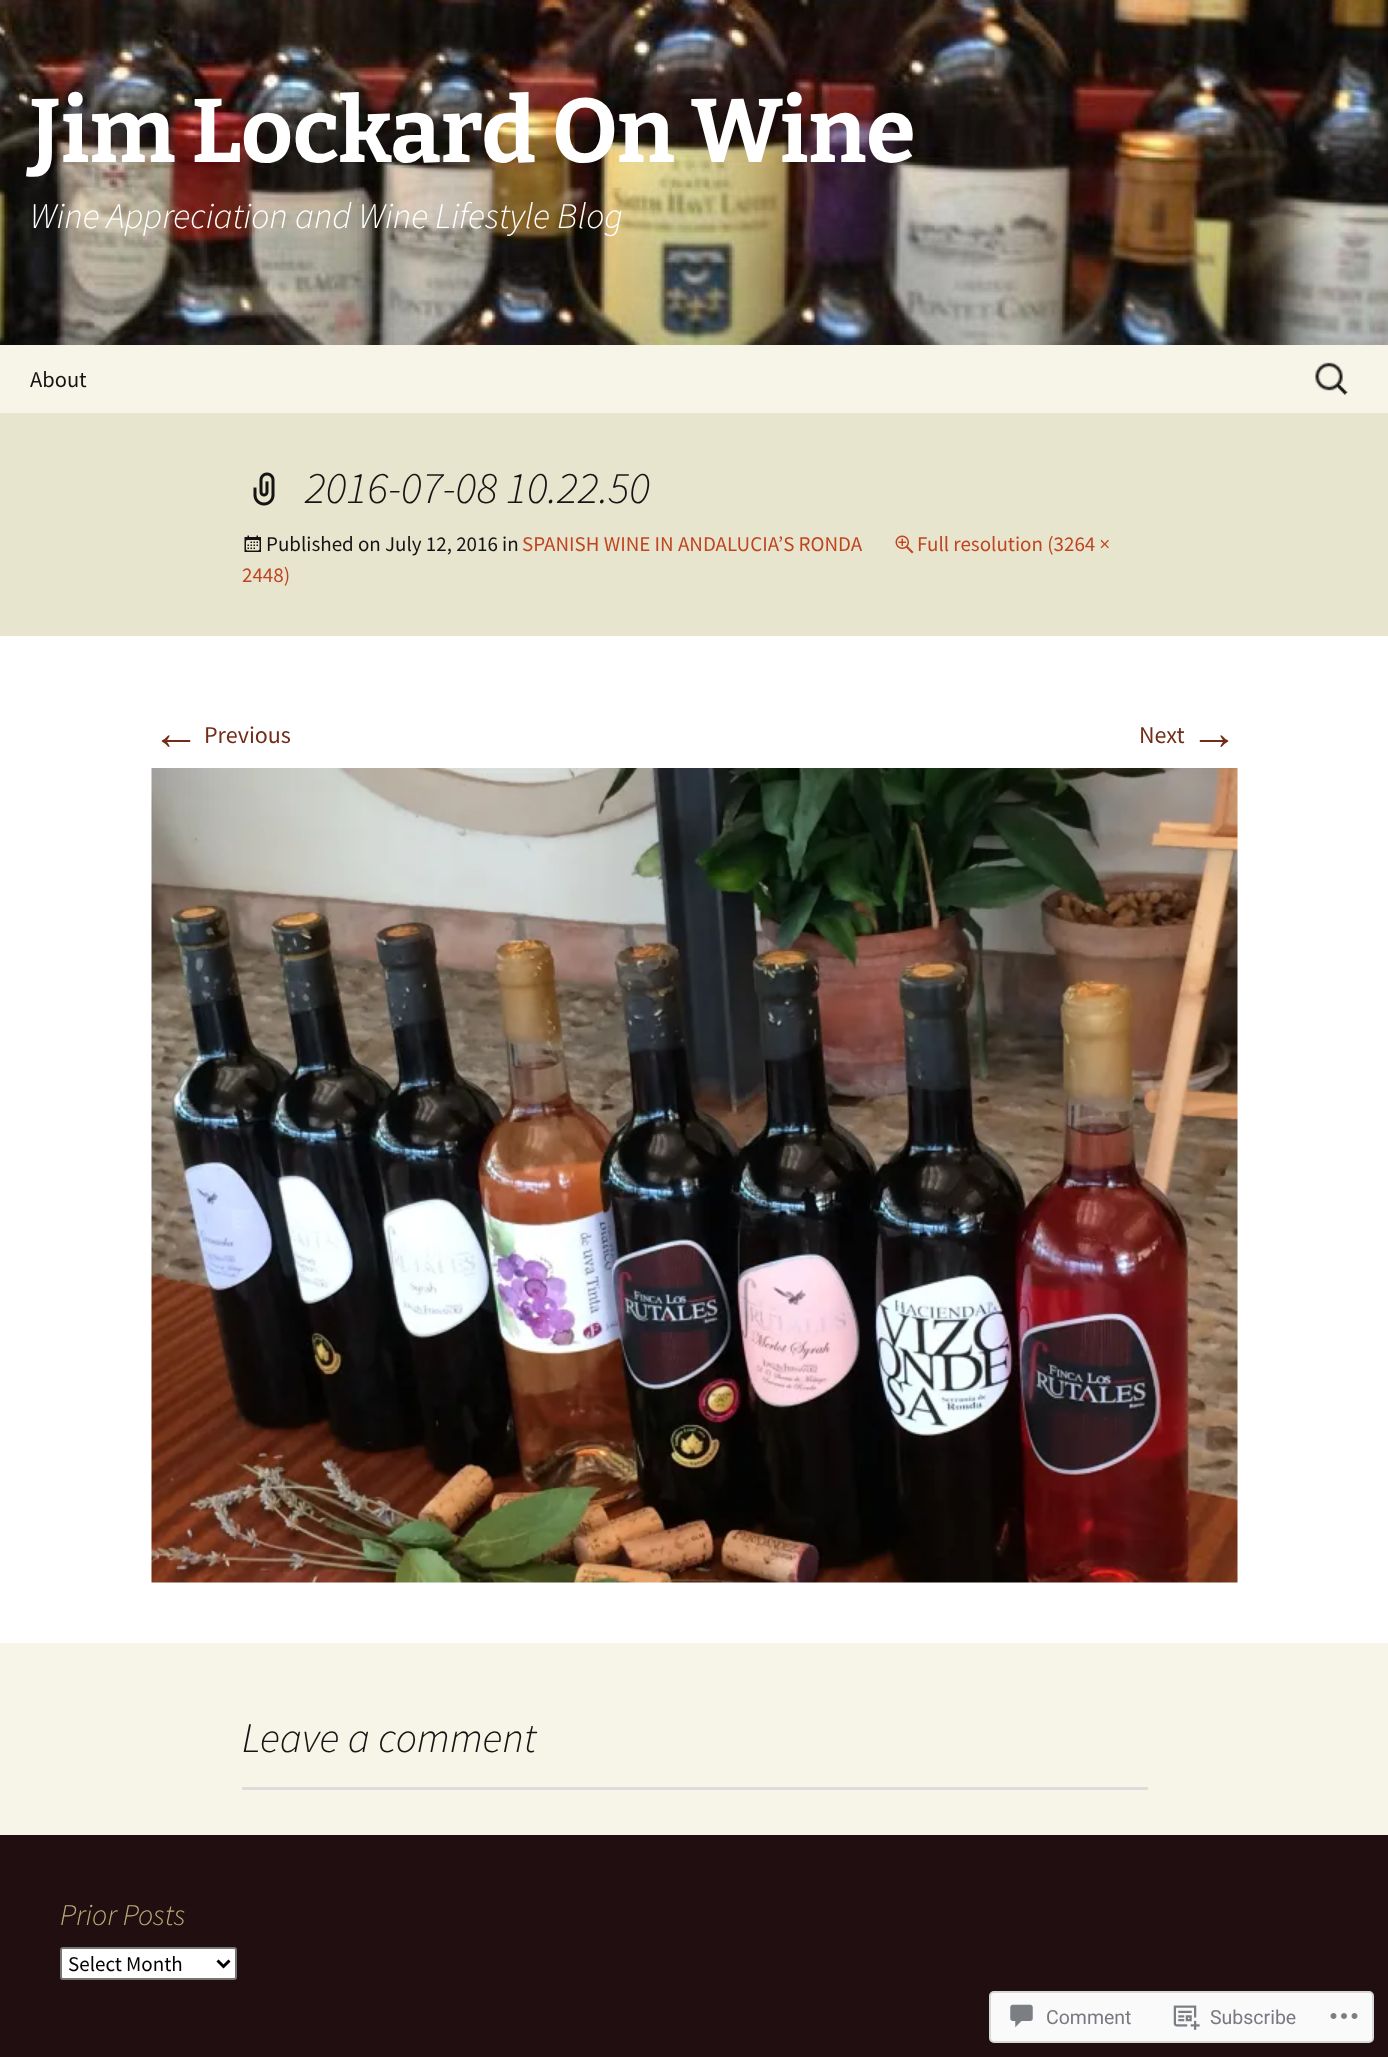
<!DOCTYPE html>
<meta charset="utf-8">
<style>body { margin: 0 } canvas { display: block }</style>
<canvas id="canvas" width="1388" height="2057"></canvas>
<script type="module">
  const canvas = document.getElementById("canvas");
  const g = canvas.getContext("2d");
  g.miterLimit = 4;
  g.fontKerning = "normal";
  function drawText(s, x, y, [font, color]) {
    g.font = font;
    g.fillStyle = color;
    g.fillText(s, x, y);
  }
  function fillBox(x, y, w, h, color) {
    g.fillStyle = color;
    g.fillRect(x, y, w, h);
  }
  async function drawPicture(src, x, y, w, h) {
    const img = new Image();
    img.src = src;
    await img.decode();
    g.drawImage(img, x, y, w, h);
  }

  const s1 = ["bold 90px Bitter", "#FFFFFF"];
  const s2 = ["italic 300 36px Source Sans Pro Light", "#FFFFFF"];
  const s3 = ["22.5px Source Sans Pro", "#141414"];
  const s4 = ["italic 300 45px Source Sans Pro Light", "#141414"];
  const s5 = ["21px Source Sans Pro", "#BF4520"];
  const s6 = ["21px Source Sans Pro", "#141414"];
  const s7 = ["48px Liberation Sans", "#722D19"];
  const s8 = ["24px Source Sans Pro", "#722D19"];
  const s9 = ["italic 300 42px Source Sans Pro Light", "#141414"];
  const s10 = ["italic 300 30px Source Sans Pro Light", "#B9AE78"];
  const s11 = ["21px Source Sans Pro", "#000000"];
  const s12 = ["19.5px Roboto", "#767A80"];

  fillBox(0, 0, 1388, 2057, "#210E10");
  await drawPicture("pic1.png", 0, 0, 1388, 345);
  drawText("Jim Lockard On Wine", 30, 162, s1);
  drawText("Wine Appreciation and Wine Lifestyle Blog", 30, 228, s2);
  fillBox(0, 345, 1388, 68, "#F7F5E7");
  drawText("About", 30, 387, s3);
  await drawPicture("pic2.png", 1315, 362, 33, 33);
  fillBox(0, 413, 1388, 223, "#E8E5CE");
  await drawPicture("pic3.png", 253, 472, 22, 34);
  drawText("2016-07-08 10.22.50", 305, 503, s4);
  await drawPicture("pic4.png", 895, 535, 19, 19);
  drawText("Full resolution (3264 ×", 917, 551, s5);
  drawText("2448)", 242, 582, s5);
  await drawPicture("pic5.png", 244, 535, 17, 17);
  drawText("Published on July 12, 2016 in", 266, 551, s6);
  drawText("SPANISH WINE IN ANDALUCIA’S RONDA", 522, 551, s5);
  fillBox(0, 636, 1388, 1007, "#FFFFFF");
  drawText("←", 152, 749, s7);
  drawText("Previous", 204, 743, s8);
  drawText("Next", 1139, 743, s8);
  drawText("→", 1190, 749, s7);
  await drawPicture("pic6.png", 151, 768, 1087, 815);
  fillBox(0, 1643, 1388, 192, "#F7F5E7");
  drawText("Leave a comment", 242, 1752, s9);
  fillBox(242, 1787, 906, 3, "#DCDCDE");
  drawText("Prior Posts", 60, 1925, s10);
  g.fillStyle = "#FFFFFF";
  g.beginPath();
  g.roundRect(61, 1948, 175, 31, 2);
  g.fill();
  g.strokeStyle = "#767676";
  g.lineWidth = 2;
  g.stroke();
  g.beginPath();
  g.moveTo(217.5, 1960.5);
  g.lineTo(223.5, 1966.5);
  g.lineTo(229.5, 1960.5);
  g.strokeStyle = "#000000";
  g.lineWidth = 3;
  g.stroke();
  drawText("Select Month", 68, 1971, s11);
  g.fillStyle = "#FBFAFA";
  g.beginPath();
  g.roundRect(990, 1992, 383, 50, 4);
  g.fill();
  g.strokeStyle = "#D8D8DA";
  g.lineWidth = 2;
  g.stroke();
  await drawPicture("pic7.png", 1010, 2004, 23, 24);
  drawText("Comment", 1046, 2024, s12);
  await drawPicture("pic8.png", 1173, 2005, 27, 25);
  drawText("Subscribe", 1210, 2024, s12);
  await drawPicture("pic9.png", 1330, 2013, 28, 6);
</script>
